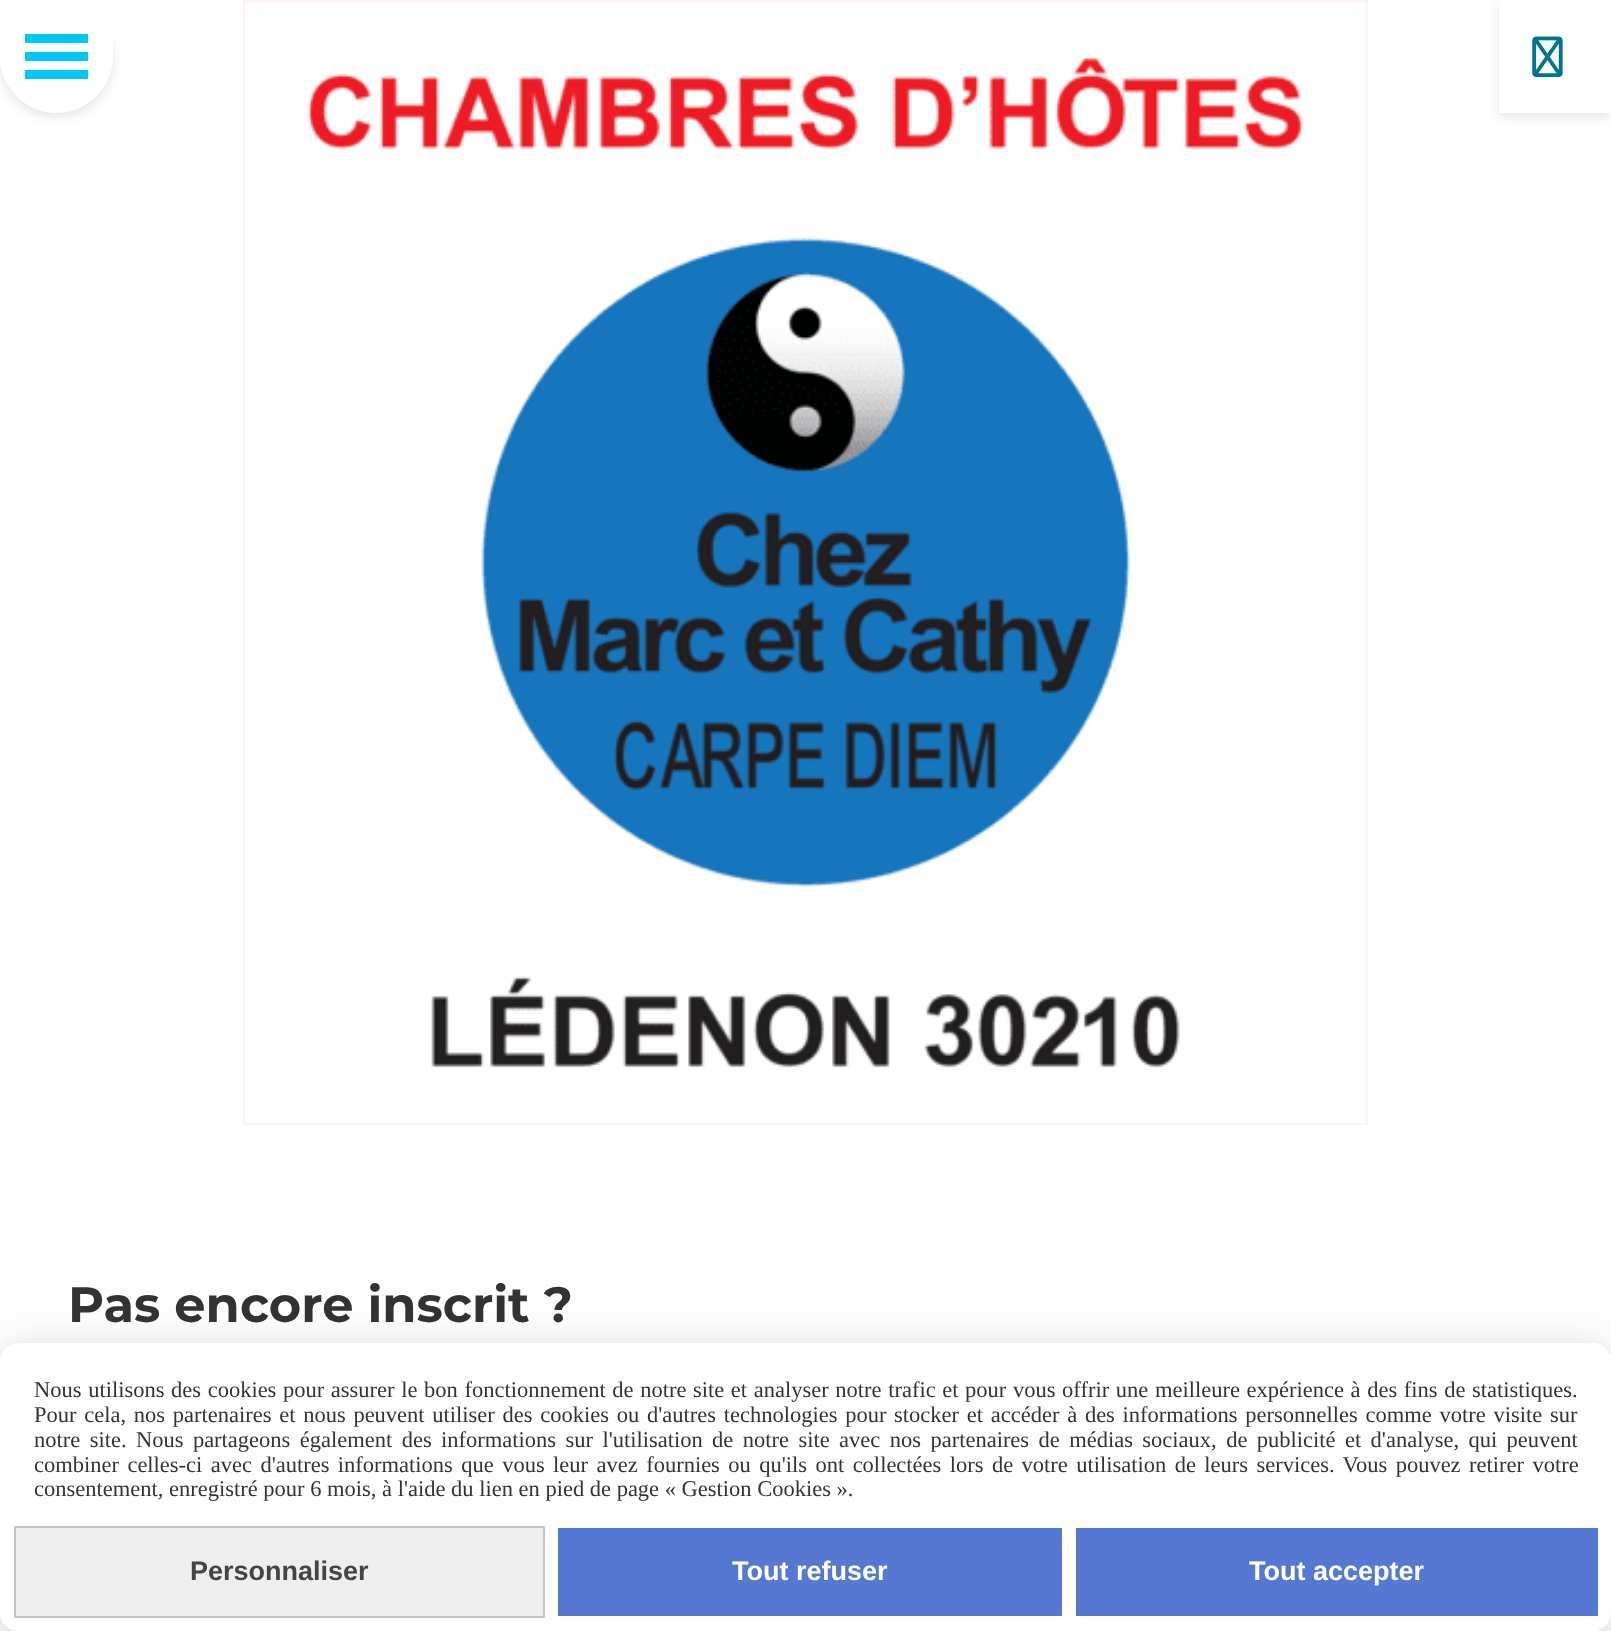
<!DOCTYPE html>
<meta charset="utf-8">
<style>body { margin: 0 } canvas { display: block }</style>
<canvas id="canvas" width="1611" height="1631"></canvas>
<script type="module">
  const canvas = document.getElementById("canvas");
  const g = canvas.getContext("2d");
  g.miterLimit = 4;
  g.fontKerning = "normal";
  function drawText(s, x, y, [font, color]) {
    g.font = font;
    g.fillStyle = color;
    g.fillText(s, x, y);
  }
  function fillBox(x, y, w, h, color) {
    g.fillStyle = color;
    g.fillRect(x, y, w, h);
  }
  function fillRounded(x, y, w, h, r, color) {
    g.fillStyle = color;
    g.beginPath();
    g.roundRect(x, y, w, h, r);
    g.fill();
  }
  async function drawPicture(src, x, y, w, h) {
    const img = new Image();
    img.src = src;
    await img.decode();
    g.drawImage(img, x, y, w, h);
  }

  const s1 = ["bold 49.5px Montserrat", "#333333"];
  const s2 = ["22.5px Liberation Serif", "#333333"];
  const s3 = ["bold 27px Liberation Sans", "#444444"];
  const s4 = ["bold 27px Liberation Sans", "#FFFFFF"];

  fillBox(0, 0, 1611, 1631, "#FFFFFF");
  g.save();
  g.beginPath();
  g.moveTo(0, 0);
  g.lineTo(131, 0);
  g.lineTo(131, 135);
  g.lineTo(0, 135);
  g.closePath();
  g.moveTo(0, 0);
  g.lineTo(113, 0);
  g.lineTo(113, 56.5);
  g.bezierCurveTo(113, 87.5, 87.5, 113, 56.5, 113);
  g.bezierCurveTo(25.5, 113, 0, 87.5, 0, 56.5);
  g.closePath();
  g.clip("evenodd");
  g.fillStyle = "rgba(0, 0, 0, 0.1)";
  g.filter = "blur(5.5px)";
  g.beginPath();
  g.roundRect(0, 5, 113, 112, 56);
  g.fill();
  g.filter = "none";
  g.restore();
  fillBox(25, 34, 63, 9, "#00C8F5");
  fillBox(25, 52, 63, 9, "#00C8F5");
  fillBox(25, 70, 63, 9, "#00C8F5");
  g.fillStyle = "rgba(0, 0, 0, 0.1)";
  g.filter = "blur(5.5px)";
  g.beginPath();
  g.rect(1499, 5, 112, 112);
  g.fill();
  g.filter = "none";
  fillBox(1499, 0, 112, 113, "#FFFFFF");
  await drawPicture("pic1.png", 1532, 36, 31, 42);
  await drawPicture("pic2.png", 243, 0, 1125, 1125);
  drawText("Pas encore inscrit ?", 68, 1322, s1);
  g.fillStyle = "rgba(0, 0, 0, 0.05)";
  g.filter = "blur(7px)";
  g.beginPath();
  g.roundRect(0, 1348, 1611, 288, 18);
  g.fill();
  g.filter = "none";
  g.fillStyle = "rgba(0, 0, 0, 0.15)";
  g.filter = "blur(27px)";
  g.beginPath();
  g.roundRect(0, 1352, 1611, 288, 18);
  g.fill();
  g.filter = "none";
  fillRounded(0, 1343, 1611, 288, 18, "#FFFFFF");
  g.wordSpacing = "1px";
  drawText("Nous utilisons des cookies pour assurer le bon fonctionnement de notre site et analyser notre trafic et pour vous offrir une meilleure expérience à des fins de statistiques.", 34, 1397, s2);
  g.wordSpacing = "2.1px";
  drawText("Pour cela, nos partenaires et nous peuvent utiliser des cookies ou d'autres technologies pour stocker et accéder à des informations personnelles comme votre visite sur", 34, 1422, s2);
  g.wordSpacing = "3.8px";
  drawText("notre site. Nous partageons également des informations sur l'utilisation de notre site avec nos partenaires de médias sociaux, de publicité et d'analyse, qui peuvent", 34, 1447, s2);
  g.wordSpacing = "2.8px";
  drawText("combiner celles-ci avec d'autres informations que vous leur avez fournies ou qu'ils ont collectées lors de votre utilisation de leurs services. Vous pouvez retirer votre", 34, 1472, s2);
  g.wordSpacing = "0px";
  drawText("consentement, enregistré pour 6 mois, à l'aide du lien en pied de page « Gestion Cookies ».", 34, 1496, s2);
  g.fillStyle = "#EEEEEE";
  g.beginPath();
  g.rect(15, 1527, 529, 90);
  g.fill();
  g.strokeStyle = "#C5C5C5";
  g.lineWidth = 2;
  g.stroke();
  drawText("Personnaliser", 190, 1580, s3);
  fillBox(558, 1528, 504, 88, "#5579D2");
  drawText("Tout refuser", 732, 1580, s4);
  fillBox(1076, 1528, 522, 88, "#5579D2");
  drawText("Tout accepter", 1249, 1580, s4);
</script>
